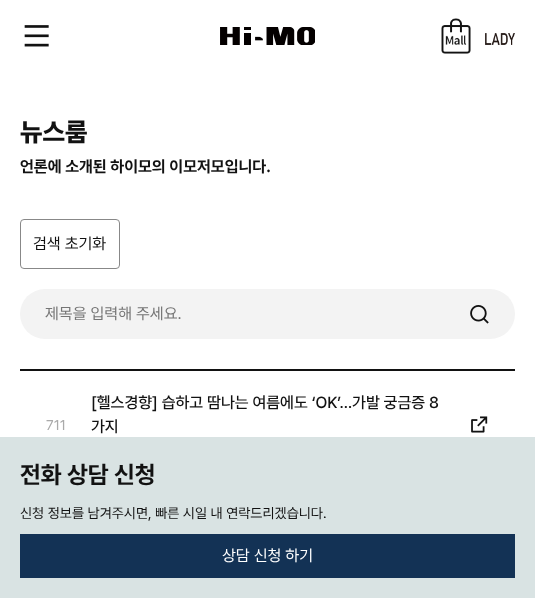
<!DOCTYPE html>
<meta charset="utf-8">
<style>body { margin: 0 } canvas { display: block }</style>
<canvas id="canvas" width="535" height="598"></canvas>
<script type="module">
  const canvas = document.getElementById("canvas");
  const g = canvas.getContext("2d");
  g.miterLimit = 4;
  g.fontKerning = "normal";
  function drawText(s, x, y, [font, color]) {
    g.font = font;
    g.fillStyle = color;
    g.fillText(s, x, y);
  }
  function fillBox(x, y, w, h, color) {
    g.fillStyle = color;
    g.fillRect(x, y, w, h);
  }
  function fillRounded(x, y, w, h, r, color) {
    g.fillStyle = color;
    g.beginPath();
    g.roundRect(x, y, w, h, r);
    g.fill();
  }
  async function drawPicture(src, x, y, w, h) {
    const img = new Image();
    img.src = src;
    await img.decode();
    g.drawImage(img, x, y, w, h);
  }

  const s1 = ["800 26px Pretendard", "#121212"];
  const s2 = ["bold 16px Pretendard", "#121212"];
  const s3 = ["16px Pretendard", "#121212"];
  const s4 = ["16px Pretendard", "#757575"];
  const s5 = ["14px Pretendard", "#AAAAAA"];
  const s6 = ["500 16px Pretendard", "#121212"];
  const s7 = ["bold 24px Pretendard", "#121212"];
  const s8 = ["14px Pretendard", "#121212"];
  const s9 = ["16px Pretendard", "#FFFFFF"];

  fillBox(0, 0, 535, 598, "#FFFFFF");
  await drawPicture("pic1.png", 24, 25, 25, 22);
  await drawPicture("pic2.png", 220, 27, 95, 18);
  await drawPicture("pic3.png", 441, 18, 30, 36);
  await drawPicture("pic4.png", 485, 33, 30, 12);
  drawText("뉴스룸", 20, 141, s1);
  drawText("언론에 소개된 하이모의 이모저모입니다.", 20, 172, s2);
  g.beginPath();
  g.roundRect(20.5, 219.5, 99, 49, 3.5);
  g.strokeStyle = "#888888";
  g.stroke();
  drawText("검색 초기화", 33, 249, s3);
  fillRounded(20, 289, 495, 50, 25, "#F3F3F3");
  drawText("제목을 입력해 주세요.", 45, 319, s4);
  await drawPicture("pic5.png", 470, 305, 19, 19);
  fillBox(20, 369, 495, 2, "#121212");
  drawText("711", 46, 430, s5);
  drawText("[헬스경향] 습하고 땀나는 여름에도 ‘OK’…가발 궁금증 8", 91, 408, s6);
  drawText("가지", 91, 432, s6);
  await drawPicture("pic6.png", 471, 416, 17, 17);
  fillBox(0, 437, 535, 161, "#D9E3E3");
  drawText("전화 상담 신청", 20, 483, s7);
  drawText("신청 정보를 남겨주시면, 빠른 시일 내 연락드리겠습니다.", 20, 518, s8);
  fillBox(20, 534, 495, 44, "#133255");
  drawText("상담 신청 하기", 222, 561, s9);
</script>
